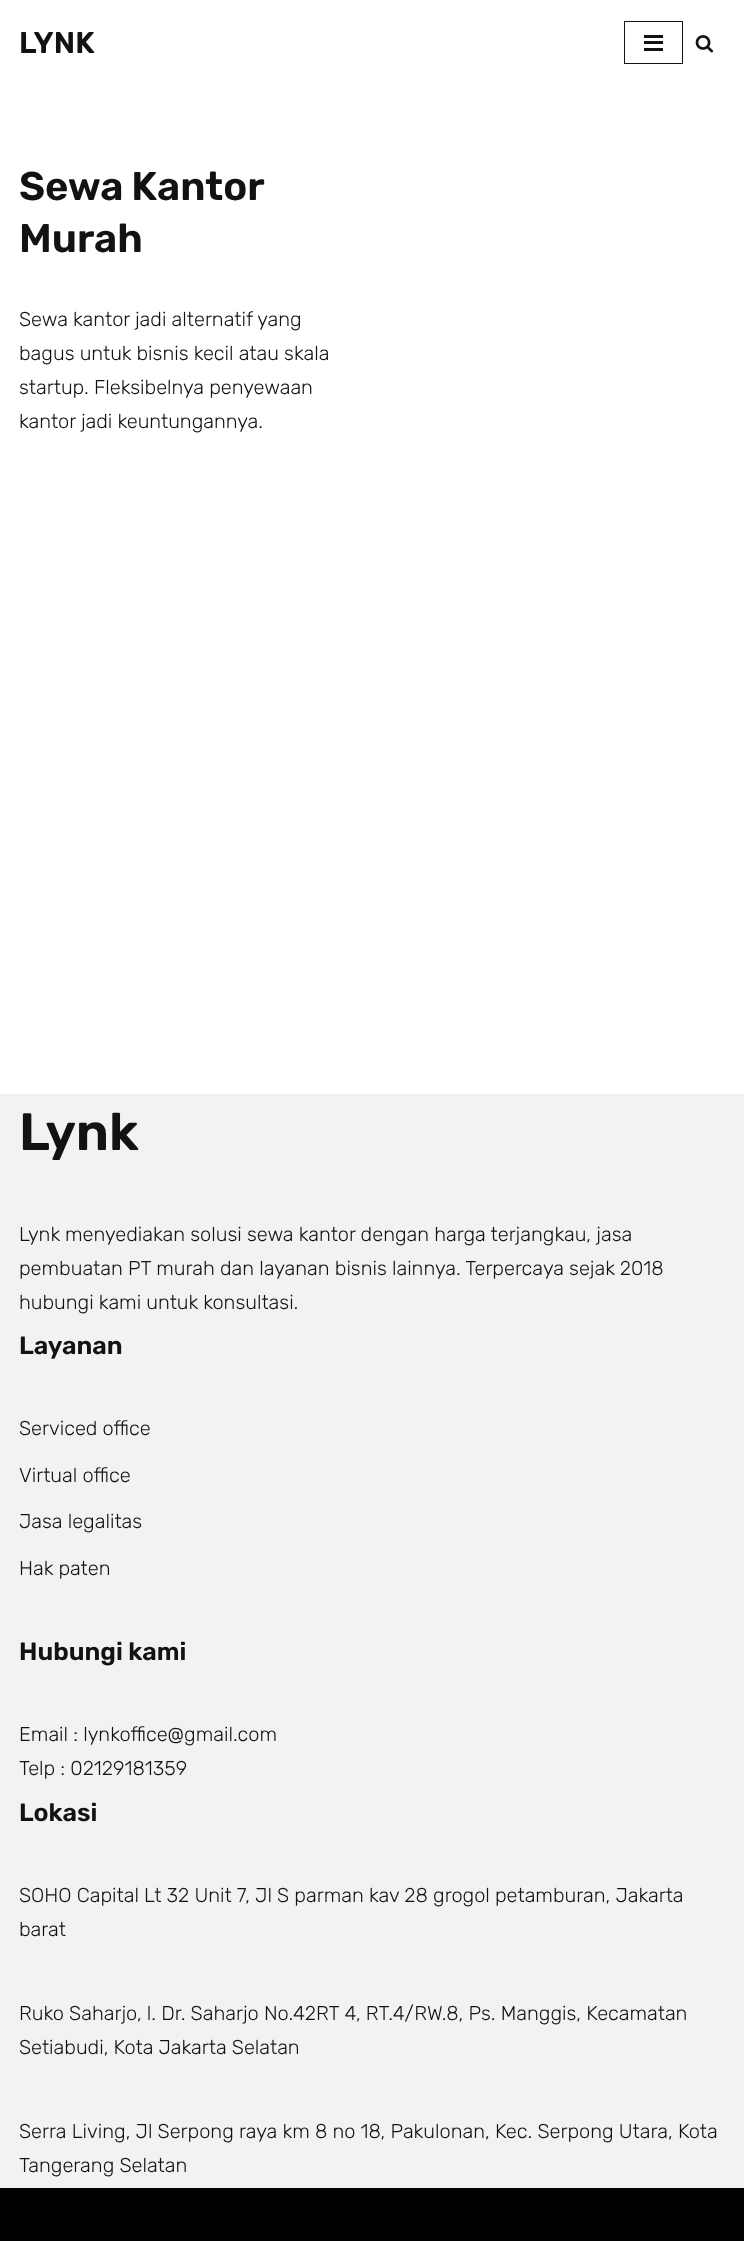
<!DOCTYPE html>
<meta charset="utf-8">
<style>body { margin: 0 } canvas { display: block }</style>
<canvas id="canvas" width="744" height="2241"></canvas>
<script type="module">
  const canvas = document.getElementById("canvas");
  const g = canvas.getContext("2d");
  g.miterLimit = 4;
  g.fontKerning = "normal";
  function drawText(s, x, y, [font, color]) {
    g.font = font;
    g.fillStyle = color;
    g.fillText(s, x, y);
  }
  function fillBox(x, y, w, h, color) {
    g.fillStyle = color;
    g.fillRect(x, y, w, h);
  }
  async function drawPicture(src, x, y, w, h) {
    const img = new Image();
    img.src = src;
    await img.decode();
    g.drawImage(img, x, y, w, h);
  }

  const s1 = ["600 30px Rubik", "#121212"];
  const s2 = ["600 40px Rubik", "#121212"];
  const s3 = ["300 20px Rubik", "#121212"];
  const s4 = ["600 52.5px Rubik", "#121212"];
  const s5 = ["600 25px Rubik", "#121212"];

  fillBox(0, 0, 744, 2241, "#FFFFFF");
  drawText("LYNK", 19, 53, s1);
  g.strokeStyle = "#121212";
  g.strokeRect(624.5, 21.5, 58, 42);
  fillBox(644, 35, 19, 3, "#121212");
  fillBox(644, 41, 19, 3, "#121212");
  fillBox(644, 48, 19, 3, "#121212");
  await drawPicture("pic1.png", 695, 35, 19, 18);
  g.wordSpacing = "-1px";
  drawText("Sewa Kantor", 19, 200, s2);
  g.wordSpacing = "0px";
  drawText("Murah", 19, 252, s2);
  drawText("Sewa kantor jadi alternatif yang", 19, 326, s3);
  drawText("bagus untuk bisnis kecil atau skala", 19, 360, s3);
  drawText("startup. Fleksibelnya penyewaan", 19, 394, s3);
  drawText("kantor jadi keuntungannya.", 19, 428, s3);
  fillBox(0, 1094, 744, 1094, "#F2F2F2");
  drawText("Lynk", 19, 1150, s4);
  drawText("Lynk menyediakan solusi sewa kantor dengan harga terjangkau, jasa", 19, 1241, s3);
  drawText("pembuatan PT murah dan layanan bisnis lainnya. Terpercaya sejak 2018", 19, 1275, s3);
  drawText("hubungi kami untuk konsultasi.", 19, 1309, s3);
  drawText("Layanan", 19, 1354, s5);
  drawText("Serviced office", 19, 1435, s3);
  drawText("Virtual office", 19, 1482, s3);
  drawText("Jasa legalitas", 19, 1528, s3);
  drawText("Hak paten", 19, 1575, s3);
  drawText("Hubungi kami", 19, 1660, s5);
  drawText("Email : lynkoffice@gmail.com", 19, 1741, s3);
  drawText("Telp : 02129181359", 19, 1775, s3);
  drawText("Lokasi", 19, 1821, s5);
  drawText("SOHO Capital Lt 32 Unit 7, Jl S parman kav 28 grogol petamburan, Jakarta", 19, 1902, s3);
  drawText("barat", 19, 1936, s3);
  drawText("Ruko Saharjo, l. Dr. Saharjo No.42RT 4, RT.4/RW.8, Ps. Manggis, Kecamatan", 19, 2020, s3);
  drawText("Setiabudi, Kota Jakarta Selatan", 19, 2054, s3);
  drawText("Serra Living, Jl Serpong raya km 8 no 18, Pakulonan, Kec. Serpong Utara, Kota", 19, 2138, s3);
  drawText("Tangerang Selatan", 19, 2172, s3);
  fillBox(0, 2188, 744, 53, "#010101");
</script>
